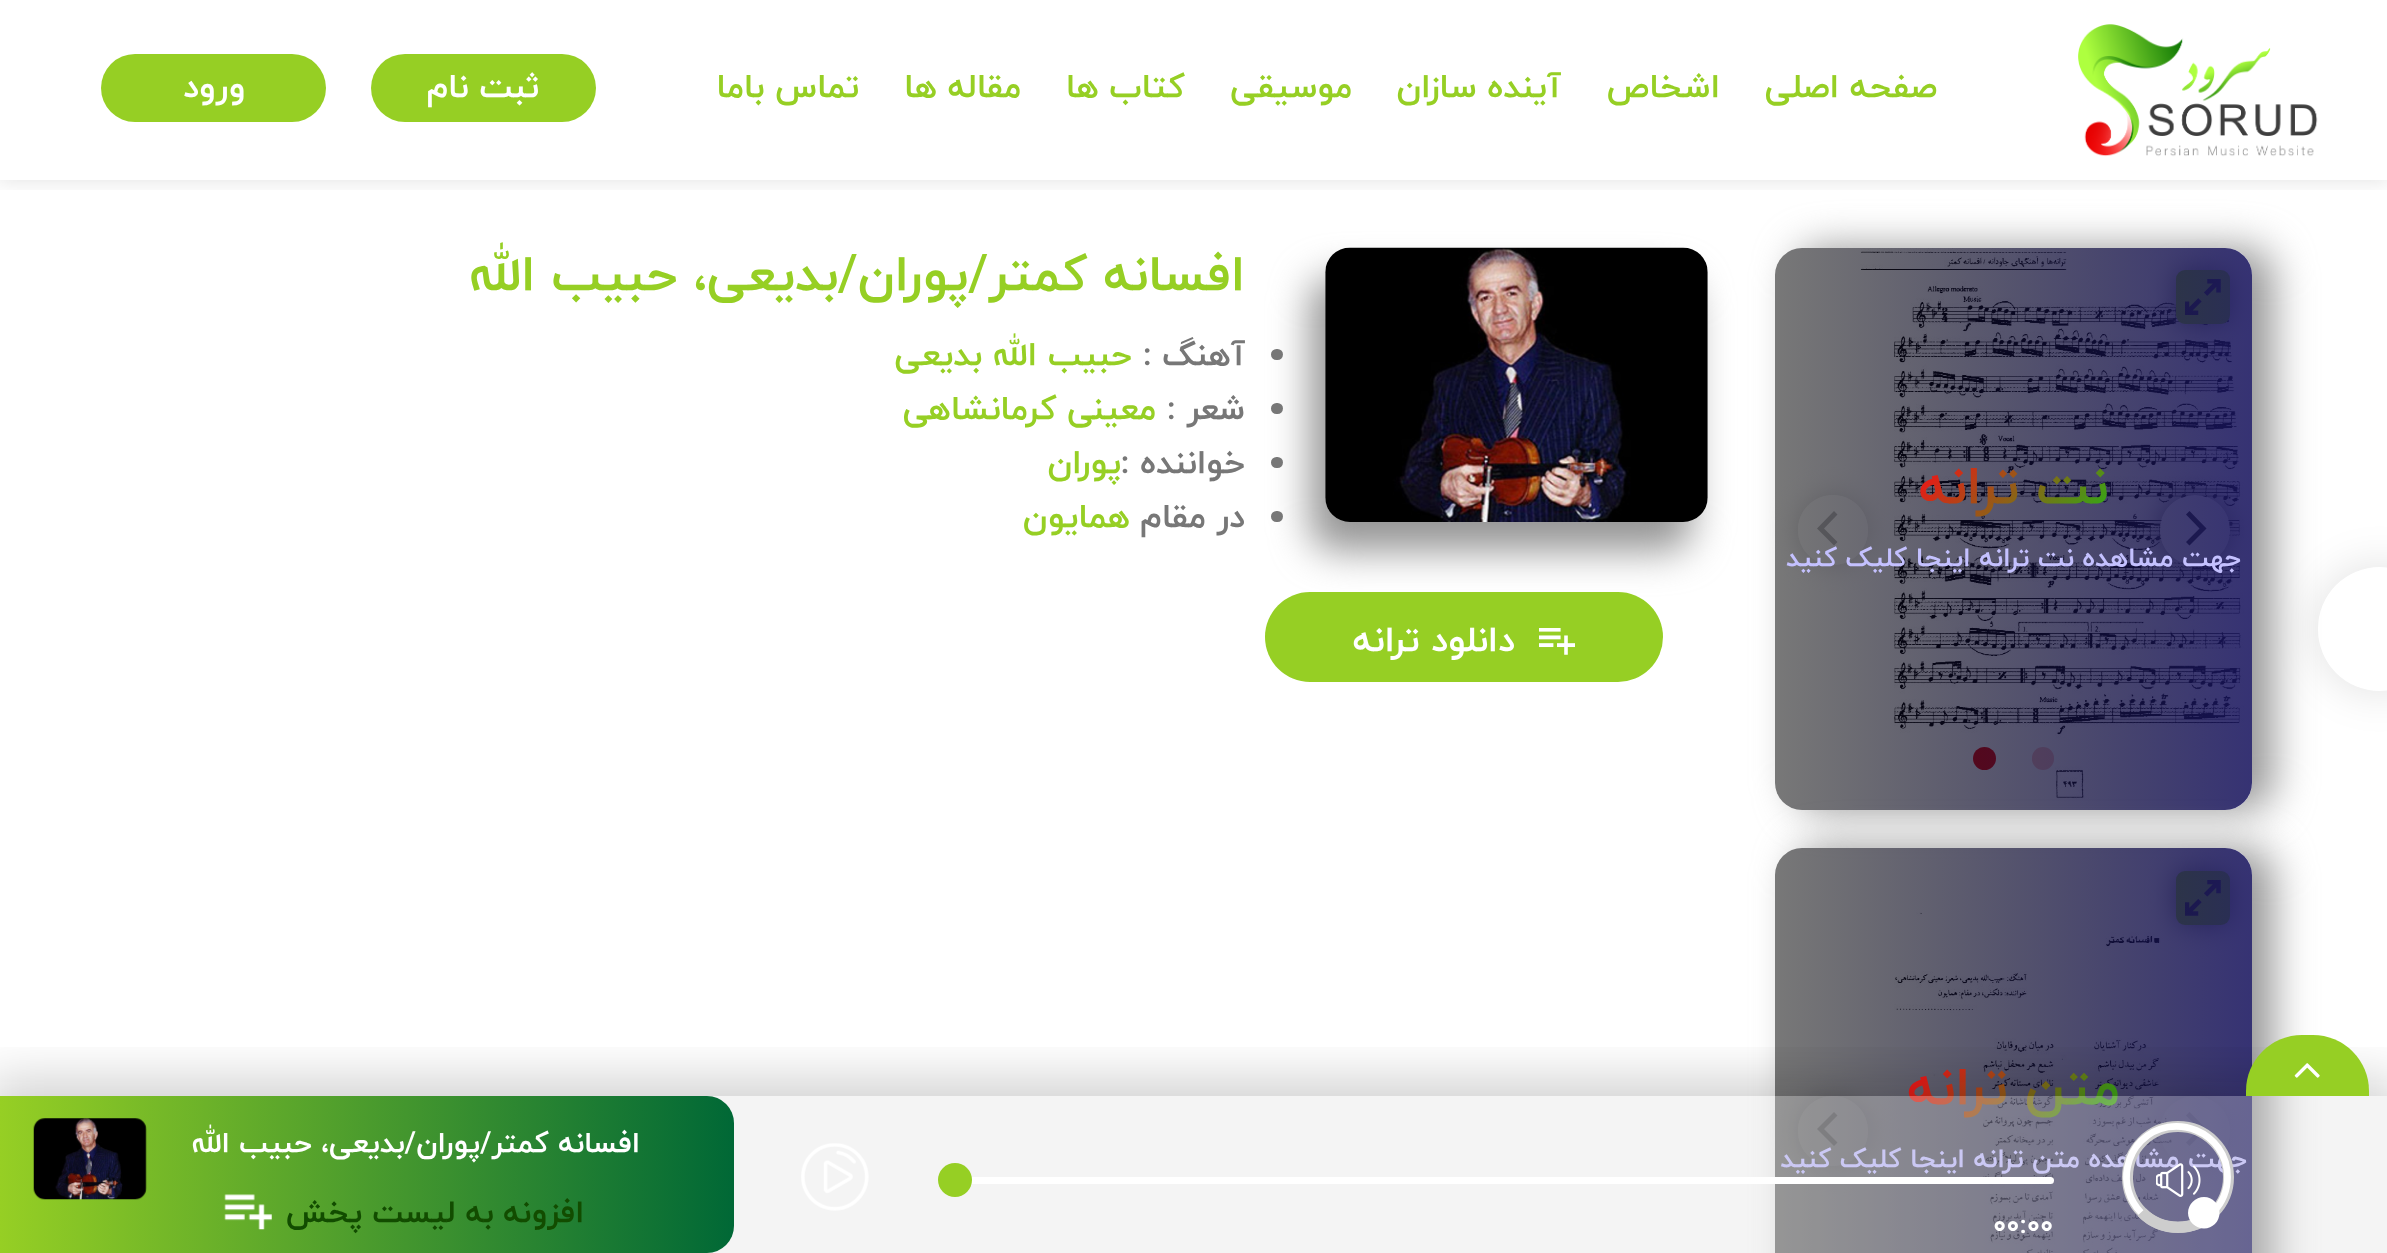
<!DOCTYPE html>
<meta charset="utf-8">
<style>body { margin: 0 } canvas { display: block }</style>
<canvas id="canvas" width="2387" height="1253"></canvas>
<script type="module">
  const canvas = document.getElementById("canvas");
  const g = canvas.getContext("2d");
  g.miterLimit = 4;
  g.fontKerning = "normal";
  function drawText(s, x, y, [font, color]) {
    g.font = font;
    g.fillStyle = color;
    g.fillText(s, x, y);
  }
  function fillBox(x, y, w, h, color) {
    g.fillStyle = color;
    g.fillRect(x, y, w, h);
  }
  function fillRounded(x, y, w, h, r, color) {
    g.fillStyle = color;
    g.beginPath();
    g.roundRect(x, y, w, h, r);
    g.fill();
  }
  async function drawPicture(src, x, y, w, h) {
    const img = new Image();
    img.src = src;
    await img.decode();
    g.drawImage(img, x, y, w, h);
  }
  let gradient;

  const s1 = ["bold 33.75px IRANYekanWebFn", "#96CF24"];
  const s2 = ["bold 33.75px IRANYekanWebFn", "#FFFFFF"];
  const s3 = ["bold 27px IRANYekanWebFn", "#C4C1FF"];
  const s4 = ["bold 50.6px IRANYekanWebFn", "#96CF24"];
  const s5 = ["bold 33.75px IRANYekanWebFn", "#777777"];
  const s6 = ["bold 36px IRANYekanWebFn", "#FFFFFF"];
  const s7 = ["bold 27px IRANYekanWebFn", "#FFFFFF"];
  const s8 = ["bold 29.25px IRANYekanWebFn", "#FFFFFF"];
  const s9 = ["bold 31.5px IRANYekanWebFn", "#124C00"];

  fillBox(0, 0, 2387, 1253, "#FFFFFF");
  g.save();
  g.beginPath();
  g.rect(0, 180, 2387, 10);
  g.clip();
  g.fillStyle = "rgba(4, 4, 4, 0.1)";
  g.filter = "blur(10px)";
  g.beginPath();
  g.rect(-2, -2, 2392, 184);
  g.fill();
  g.filter = "none";
  g.restore();
  await drawPicture("pic1.png", 2078, 24, 240, 133);
  g.direction = "rtl";
  drawText("صفحه اصلی", 1937, 97, s1);
  drawText("اشخاص", 1720, 97, s1);
  drawText("آینده سازان", 1561, 97, s1);
  drawText("موسیقی", 1352, 97, s1);
  drawText("کتاب ها", 1185, 97, s1);
  drawText("مقاله ها", 1021, 97, s1);
  drawText("تماس باما", 859, 97, s1);
  fillRounded(371, 54, 225, 68, 34, "#96CF24");
  drawText("ثبت نام", 539, 97, s2);
  fillRounded(101, 54, 225, 68, 34, "#96CF24");
  drawText("ورود", 245, 97, s2);
  g.fillStyle = "rgba(4, 4, 4, 0.1)";
  g.filter = "blur(20px)";
  g.beginPath();
  g.roundRect(2313, 563, 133, 132, 66);
  g.fill();
  g.filter = "none";
  fillRounded(2318, 567, 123, 124, 61.5, "#FFFFFF");
  await drawPicture("pic3.png", 1860, 248, 384, 551);
  g.fillStyle = "#808080";
  g.filter = "blur(13.5px)";
  g.beginPath();
  g.roundRect(2176, 270, 54, 54, 9);
  g.fill();
  g.filter = "none";
  fillRounded(2176, 270, 54, 54, 9, "#96CF24");
  await drawPicture("pic2.png", 2185, 279, 36, 36);
  g.save();
  g.beginPath();
  g.moveTo(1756, 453);
  g.lineTo(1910, 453);
  g.lineTo(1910, 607);
  g.lineTo(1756, 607);
  g.closePath();
  g.moveTo(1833, 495);
  g.bezierCurveTo(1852.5, 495, 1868, 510.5, 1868, 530);
  g.bezierCurveTo(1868, 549.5, 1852.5, 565, 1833, 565);
  g.bezierCurveTo(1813.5, 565, 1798, 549.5, 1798, 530);
  g.bezierCurveTo(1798, 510.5, 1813.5, 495, 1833, 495);
  g.closePath();
  g.clip("evenodd");
  g.fillStyle = "#D9D9D9";
  g.filter = "blur(13.5px)";
  g.beginPath();
  g.roundRect(1798, 495, 70, 70, 35);
  g.fill();
  g.filter = "none";
  g.restore();
  g.fillStyle = "#FFFFFF";
  g.beginPath();
  g.arc(1833, 530, 35, 0, Math.PI * 2);
  g.fill();
  g.fillStyle = "#C2C2C2";
  g.beginPath();
  g.moveTo(1817, 528.5);
  g.lineTo(1834, 545.5);
  g.lineTo(1837.5, 542);
  g.lineTo(1824, 528.5);
  g.lineTo(1837.5, 514.5);
  g.lineTo(1834, 511);
  g.closePath();
  g.fill();
  g.save();
  g.beginPath();
  g.moveTo(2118, 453);
  g.lineTo(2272, 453);
  g.lineTo(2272, 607);
  g.lineTo(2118, 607);
  g.closePath();
  g.moveTo(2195, 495);
  g.bezierCurveTo(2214.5, 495, 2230, 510.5, 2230, 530);
  g.bezierCurveTo(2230, 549.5, 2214.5, 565, 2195, 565);
  g.bezierCurveTo(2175.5, 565, 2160, 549.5, 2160, 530);
  g.bezierCurveTo(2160, 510.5, 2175.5, 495, 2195, 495);
  g.closePath();
  g.clip("evenodd");
  g.fillStyle = "#808080";
  g.filter = "blur(13.5px)";
  g.beginPath();
  g.roundRect(2160, 495, 70, 70, 35);
  g.fill();
  g.filter = "none";
  g.restore();
  g.fillStyle = "#FFFFFF";
  g.beginPath();
  g.arc(2195, 530, 35, 0, Math.PI * 2);
  g.fill();
  g.fillStyle = "#333333";
  g.beginPath();
  g.moveTo(2206.5, 528.5);
  g.lineTo(2189.5, 511);
  g.lineTo(2186, 514.5);
  g.lineTo(2199.5, 528.5);
  g.lineTo(2186, 542);
  g.lineTo(2189.5, 545.5);
  g.closePath();
  g.fill();
  fillRounded(2032, 747, 22, 23, 11, "#FAC1C1");
  g.fillStyle = "#E90606";
  g.beginPath();
  g.arc(1984.5, 758.5, 11.5, 0, Math.PI * 2);
  g.fill();
  g.save();
  g.beginPath();
  g.moveTo(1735, 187);
  g.lineTo(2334, 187);
  g.lineTo(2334, 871);
  g.lineTo(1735, 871);
  g.closePath();
  g.moveTo(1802, 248);
  g.lineTo(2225, 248);
  g.bezierCurveTo(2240, 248, 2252, 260, 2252, 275);
  g.lineTo(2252, 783);
  g.bezierCurveTo(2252, 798, 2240, 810, 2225, 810);
  g.lineTo(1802, 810);
  g.bezierCurveTo(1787, 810, 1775, 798, 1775, 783);
  g.lineTo(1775, 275);
  g.bezierCurveTo(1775, 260, 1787, 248, 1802, 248);
  g.closePath();
  g.clip("evenodd");
  g.fillStyle = "#959595";
  g.filter = "blur(20px)";
  g.beginPath();
  g.roundRect(1796, 248, 477, 562, 27);
  g.fill();
  g.filter = "none";
  g.restore();
  gradient = g.createLinearGradient(1775, 529, 2252, 529);
  gradient.addColorStop(0, "rgba(0, 0, 0, 0.53)");
  gradient.addColorStop(1, "rgba(26, 22, 96, 0.88)");
  g.fillStyle = gradient;
  g.beginPath();
  g.roundRect(1775, 248, 477, 562, 27);
  g.fill();
  g.font = "bold 54px IRANYekanWebFn";
  gradient = g.createLinearGradient(1877, 360, 2150, 633);
  gradient.addColorStop(0, "#96CF24");
  gradient.addColorStop(0.29, "#ED1717");
  gradient.addColorStop(0.67, "#3E9F16");
  gradient.addColorStop(1, "#A1F43A");
  g.fillStyle = gradient;
  g.fillText("نت ترانه", 2108, 503);
  drawText("جهت مشاهده نت ترانه اینجا کلیک کنید", 2241, 566, s3);
  await drawPicture("pic5.png", 1894, 912, 278, 341);
  g.fillStyle = "#808080";
  g.filter = "blur(13.5px)";
  g.beginPath();
  g.roundRect(2176, 871, 54, 54, 9);
  g.fill();
  g.filter = "none";
  fillRounded(2176, 871, 54, 54, 9, "#96CF24");
  await drawPicture("pic4.png", 2185, 880, 36, 36);
  g.save();
  g.beginPath();
  g.moveTo(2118, 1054);
  g.lineTo(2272, 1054);
  g.lineTo(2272, 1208);
  g.lineTo(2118, 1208);
  g.closePath();
  g.moveTo(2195, 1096);
  g.bezierCurveTo(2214.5, 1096, 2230, 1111.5, 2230, 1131);
  g.bezierCurveTo(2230, 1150.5, 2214.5, 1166, 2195, 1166);
  g.bezierCurveTo(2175.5, 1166, 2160, 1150.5, 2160, 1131);
  g.bezierCurveTo(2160, 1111.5, 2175.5, 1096, 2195, 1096);
  g.closePath();
  g.clip("evenodd");
  g.fillStyle = "rgba(128, 128, 128, 0.3)";
  g.filter = "blur(13.5px)";
  g.beginPath();
  g.roundRect(2160, 1096, 70, 70, 35);
  g.fill();
  g.filter = "none";
  g.restore();
  g.fillStyle = "rgba(255, 255, 255, 0.3)";
  g.beginPath();
  g.arc(2195, 1131, 35, 0, Math.PI * 2);
  g.fill();
  g.fillStyle = "#C2C2C2";
  g.beginPath();
  g.moveTo(2206.5, 1129);
  g.lineTo(2189.5, 1112);
  g.lineTo(2186, 1115.5);
  g.lineTo(2199.5, 1129);
  g.lineTo(2186, 1142.5);
  g.lineTo(2189.5, 1146);
  g.closePath();
  g.fill();
  g.save();
  g.beginPath();
  g.moveTo(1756, 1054);
  g.lineTo(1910, 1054);
  g.lineTo(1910, 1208);
  g.lineTo(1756, 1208);
  g.closePath();
  g.moveTo(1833, 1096);
  g.bezierCurveTo(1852.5, 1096, 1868, 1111.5, 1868, 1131);
  g.bezierCurveTo(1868, 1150.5, 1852.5, 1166, 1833, 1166);
  g.bezierCurveTo(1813.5, 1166, 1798, 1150.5, 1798, 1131);
  g.bezierCurveTo(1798, 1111.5, 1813.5, 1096, 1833, 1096);
  g.closePath();
  g.clip("evenodd");
  g.fillStyle = "#D9D9D9";
  g.filter = "blur(13.5px)";
  g.beginPath();
  g.roundRect(1798, 1096, 70, 70, 35);
  g.fill();
  g.filter = "none";
  g.restore();
  g.fillStyle = "#FFFFFF";
  g.beginPath();
  g.arc(1833, 1131, 35, 0, Math.PI * 2);
  g.fill();
  g.fillStyle = "#C2C2C2";
  g.beginPath();
  g.moveTo(1817, 1129);
  g.lineTo(1834, 1146);
  g.lineTo(1837.5, 1142.5);
  g.lineTo(1824, 1129);
  g.lineTo(1837.5, 1115.5);
  g.lineTo(1834, 1112);
  g.closePath();
  g.fill();
  g.save();
  g.beginPath();
  g.moveTo(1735, 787);
  g.lineTo(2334, 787);
  g.lineTo(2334, 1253);
  g.lineTo(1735, 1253);
  g.closePath();
  g.moveTo(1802, 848);
  g.lineTo(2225, 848);
  g.bezierCurveTo(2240, 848, 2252, 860, 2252, 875);
  g.lineTo(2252, 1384);
  g.bezierCurveTo(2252, 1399, 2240, 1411, 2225, 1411);
  g.lineTo(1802, 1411);
  g.bezierCurveTo(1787, 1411, 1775, 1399, 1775, 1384);
  g.lineTo(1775, 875);
  g.bezierCurveTo(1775, 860, 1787, 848, 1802, 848);
  g.closePath();
  g.clip("evenodd");
  g.fillStyle = "#959595";
  g.filter = "blur(20px)";
  g.beginPath();
  g.roundRect(1796, 848, 477, 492, 27);
  g.fill();
  g.filter = "none";
  g.restore();
  gradient = g.createLinearGradient(1775, 1130, 2252, 1130);
  gradient.addColorStop(0, "rgba(0, 0, 0, 0.53)");
  gradient.addColorStop(1, "rgba(26, 22, 96, 0.88)");
  g.fillStyle = gradient;
  g.beginPath();
  g.roundRect(1775, 848, 477, 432, 27);
  g.fill();
  g.font = "bold 54px IRANYekanWebFn";
  gradient = g.createLinearGradient(1877, 961, 2150, 1234);
  gradient.addColorStop(0, "#96CF24");
  gradient.addColorStop(0.29, "#ED1717");
  gradient.addColorStop(0.67, "#3E9F16");
  gradient.addColorStop(1, "#A1F43A");
  g.fillStyle = gradient;
  g.fillText("متن ترانه", 2120, 1104);
  drawText("جهت مشاهده متن ترانه اینجا کلیک کنید", 2247, 1167, s3);
  g.fillStyle = "#959595";
  g.filter = "blur(19px)";
  g.beginPath();
  g.roundRect(1310, 277, 382, 274, 25);
  g.fill();
  g.filter = "none";
  await drawPicture("pic6.png", 1325, 247, 383, 275);
  drawText("افسانه کمتر/پوران/بدیعی، حبیب الله", 1245, 290, s4);
  fillRounded(1271, 349, 12, 11, 5.5, "#777777");
  drawText("آهنگ :", 1245, 365, s5);
  drawText("حبیب الله بدیعی", 1132, 365, s1);
  fillRounded(1271, 403, 12, 11, 5.5, "#777777");
  drawText("شعر :", 1245, 419, s5);
  drawText("معینی کرمانشاهی", 1156, 419, s1);
  fillRounded(1271, 457, 12, 11, 5.5, "#777777");
  drawText("خواننده :", 1245, 473, s5);
  drawText("پوران", 1121, 473, s1);
  fillRounded(1271, 511, 12, 11, 5.5, "#777777");
  drawText("در مقام", 1245, 527, s5);
  drawText("همایون", 1130, 527, s1);
  fillRounded(1265, 592, 398, 90, 45, "#96CF24");
  await drawPicture("pic7.png", 1539, 628, 36, 27);
  drawText("دانلود ترانه", 1515, 651, s6);
  g.save();
  g.beginPath();
  g.rect(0, 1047, 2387, 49);
  g.clip();
  g.fillStyle = "rgba(4, 4, 4, 0.2)";
  g.filter = "blur(27px)";
  g.beginPath();
  g.rect(-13, 1082, 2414, 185);
  g.fill();
  g.filter = "none";
  g.restore();
  g.fillStyle = "#96CF24";
  g.beginPath();
  g.roundRect(2246, 1035, 123, 61, [56, 56, 0, 0]);
  g.fill();
  await drawPicture("pic8.png", 2294, 1063, 26, 15);
  fillBox(707, 1096, 1680, 157, "rgba(219, 219, 219, 0.3)");
  g.beginPath();
  g.arc(2178, 1177, 50.5, 0, Math.PI * 2);
  g.strokeStyle = "#CDCDCD";
  g.lineWidth = 11;
  g.stroke();
  g.beginPath();
  g.moveTo(2141, 1212.5);
  g.bezierCurveTo(2129.5, 1200.5, 2124, 1183.5, 2127.5, 1167);
  g.bezierCurveTo(2129.5, 1157, 2134, 1148, 2141, 1141);
  g.bezierCurveTo(2173, 1109.5, 2227.5, 1132, 2227.5, 1177);
  g.bezierCurveTo(2227.5, 1190, 2222, 1203, 2213, 1212.5);
  g.strokeStyle = "#FFFFFF";
  g.lineWidth = 6.8;
  g.stroke();
  await drawPicture("pic9.png", 2156, 1163, 45, 34);
  g.beginPath();
  g.moveTo(2214, 1212.5);
  g.bezierCurveTo(2194.5, 1232, 2161.5, 1232, 2142, 1212.5);
  g.strokeStyle = "#CDCDCD";
  g.lineWidth = 11.2;
  g.stroke();
  g.fillStyle = "#FFFFFF";
  g.beginPath();
  g.moveTo(2188, 1213);
  g.bezierCurveTo(2188, 1204, 2195.5, 1197, 2204, 1197);
  g.bezierCurveTo(2212.5, 1197, 2219.5, 1204, 2219.5, 1213);
  g.bezierCurveTo(2219.5, 1221.5, 2212.5, 1228.5, 2204, 1228.5);
  g.bezierCurveTo(2195.5, 1228.5, 2188, 1221.5, 2188, 1213);
  g.closePath();
  g.fill();
  await drawPicture("pic10.png", 801, 1143, 68, 68);
  fillRounded(956, 1177, 1098, 7, 3.5, "#FFFFFF");
  g.fillStyle = "#96CF24";
  g.beginPath();
  g.arc(955, 1180, 17, 0, Math.PI * 2);
  g.fill();
  g.direction = "ltr";
  drawText("00:00", 1993, 1233, s7);
  gradient = g.createLinearGradient(734, 1175, 0, 1175);
  gradient.addColorStop(0, "#006836");
  gradient.addColorStop(1, "#96CF24");
  g.fillStyle = gradient;
  g.beginPath();
  g.roundRect(0, 1096, 734, 157, [0, 27, 27, 0]);
  g.fill();
  g.direction = "rtl";
  drawText("افسانه کمتر/پوران/بدیعی، حبیب الله", 640, 1152, s8);
  await drawPicture("pic11.png", 33, 1118, 114, 82);
  drawText("افزونه به لیست پخش", 584, 1222, s9);
  await drawPicture("pic12.png", 224, 1194, 48, 36);
</script>
